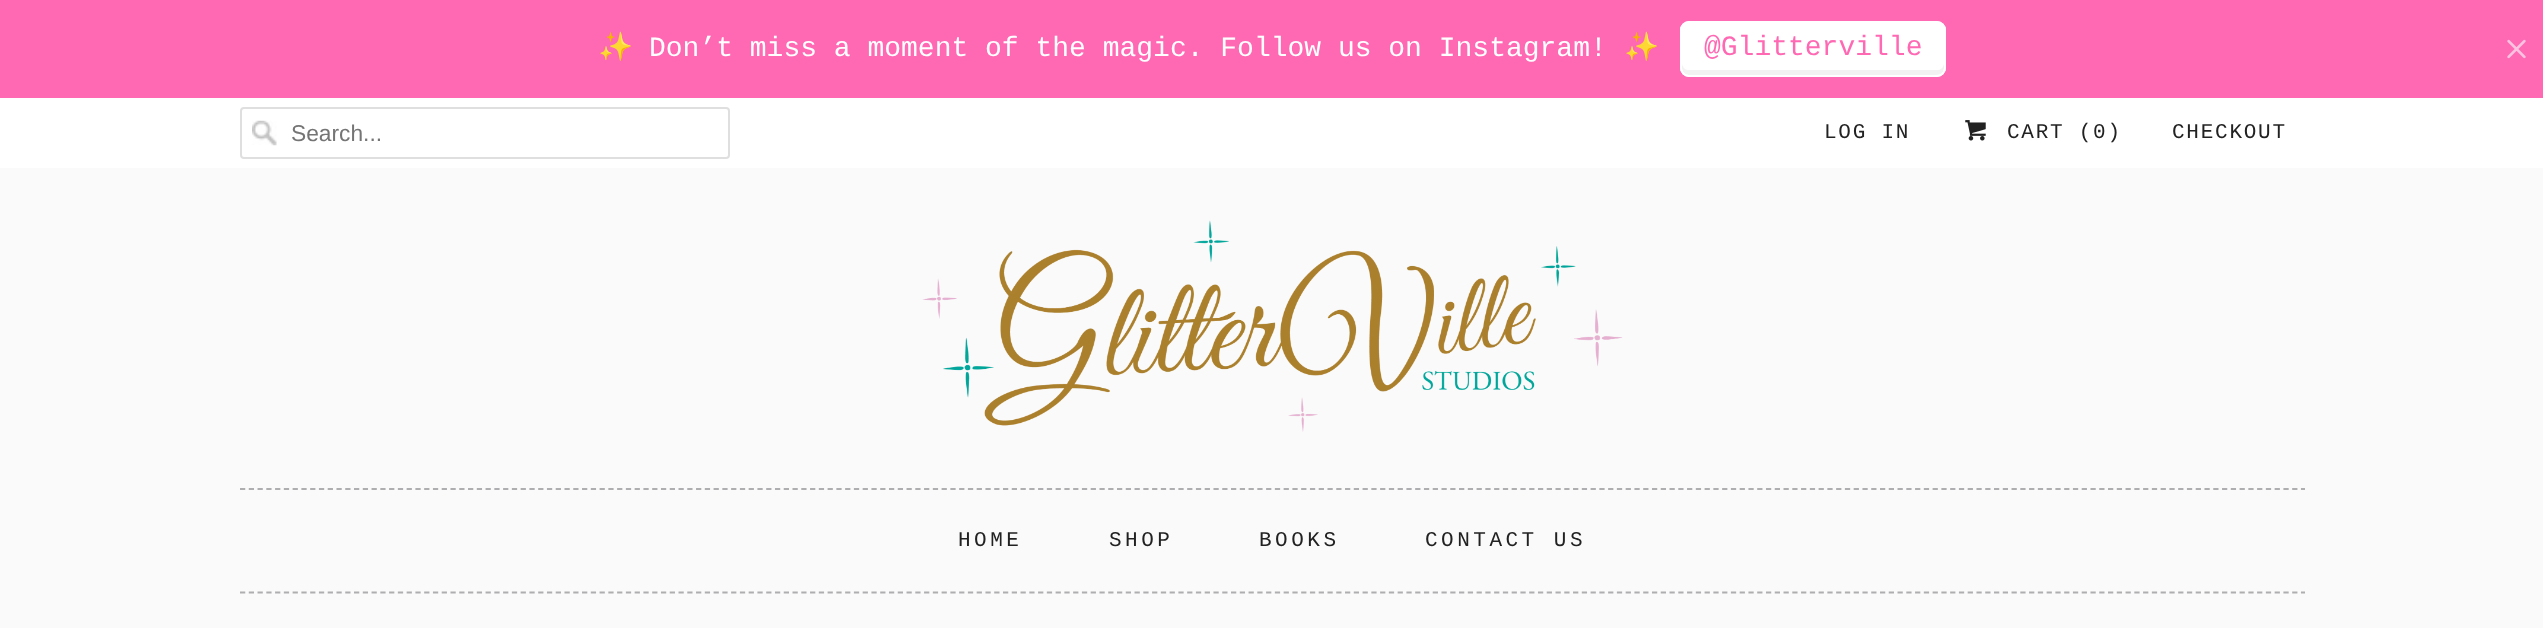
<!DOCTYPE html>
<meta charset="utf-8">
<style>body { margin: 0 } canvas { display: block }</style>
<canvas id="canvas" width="2543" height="628"></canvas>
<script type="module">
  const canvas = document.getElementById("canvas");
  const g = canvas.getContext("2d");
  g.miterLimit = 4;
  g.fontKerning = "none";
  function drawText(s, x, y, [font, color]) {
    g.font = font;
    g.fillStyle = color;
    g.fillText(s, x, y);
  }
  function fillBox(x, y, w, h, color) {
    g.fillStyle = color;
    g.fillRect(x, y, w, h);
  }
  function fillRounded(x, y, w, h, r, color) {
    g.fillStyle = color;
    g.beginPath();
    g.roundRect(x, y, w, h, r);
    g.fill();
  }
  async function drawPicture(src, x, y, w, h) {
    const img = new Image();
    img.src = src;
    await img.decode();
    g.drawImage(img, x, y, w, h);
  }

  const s1 = ["28px Noto Color Emoji", "#FFFFFF"];
  const s2 = ["28px Liberation Mono", "#FFFFFF"];
  const s3 = ["28px Liberation Mono", "#FF69B4"];
  const s4 = ["22.75px Liberation Sans", "#757575"];
  const s5 = ["21px Liberation Mono", "#222222"];

  fillBox(0, 0, 2543, 628, "#FAFAFA");
  fillBox(0, 0, 2543, 98, "#FF69B4");
  drawText("✨", 598, 56, s1);
  drawText("Don’t miss a moment of the magic. Follow us on Instagram!", 649, 56, s2);
  drawText("✨", 1624, 56, s1);
  fillRounded(1680, 21, 266, 56, 9, "#FFFFFF");
  g.fillStyle = "#F2F2F2";
  g.beginPath();
  g.moveTo(1682, 63);
  g.lineTo(1682, 68);
  g.bezierCurveTo(1682, 72, 1685, 75, 1689, 75);
  g.lineTo(1937, 75);
  g.bezierCurveTo(1941, 75, 1944, 72, 1944, 68);
  g.lineTo(1944, 63);
  g.bezierCurveTo(1944, 67, 1941, 70, 1938, 70);
  g.lineTo(1688, 70);
  g.bezierCurveTo(1685, 70, 1682, 67, 1682, 63);
  g.closePath();
  g.fill();
  g.beginPath();
  g.roundRect(1681, 22, 264, 54, 8);
  g.strokeStyle = "#FFFFFF";
  g.lineWidth = 2;
  g.stroke();
  drawText("@Glitterville", 1704, 55, s3);
  await drawPicture("pic1.png", 2507, 39, 19, 20);
  fillBox(0, 98, 2543, 70, "#FFFFFF");
  await drawPicture("pic2.png", 252, 120, 25, 26);
  g.beginPath();
  g.roundRect(241, 108, 488, 50, 3);
  g.strokeStyle = "#DFDFDF";
  g.stroke();
  drawText("Search...", 291, 141, s4);
  g.letterSpacing = "1.75px";
  drawText("LOG IN", 1824, 138, s5);
  await drawPicture("pic3.png", 1965, 120, 21, 21);
  drawText("CART (0)", 2007, 138, s5);
  drawText("CHECKOUT", 2172, 138, s5);
  await drawPicture("pic4.png", 922, 220, 701, 212);
  g.beginPath();
  g.moveTo(240, 489);
  g.lineTo(2305, 489);
  g.strokeStyle = "#AEAEB0";
  g.lineWidth = 1.8;
  g.setLineDash([5.25, 3.52]);
  g.stroke();
  g.beginPath();
  g.moveTo(240, 592.5);
  g.lineTo(2305, 592.5);
  g.stroke();
  g.letterSpacing = "3.5px";
  drawText("HOME", 958, 546, s5);
  drawText("SHOP", 1109, 546, s5);
  drawText("BOOKS", 1259, 546, s5);
  drawText("CONTACT US", 1425, 546, s5);
</script>
